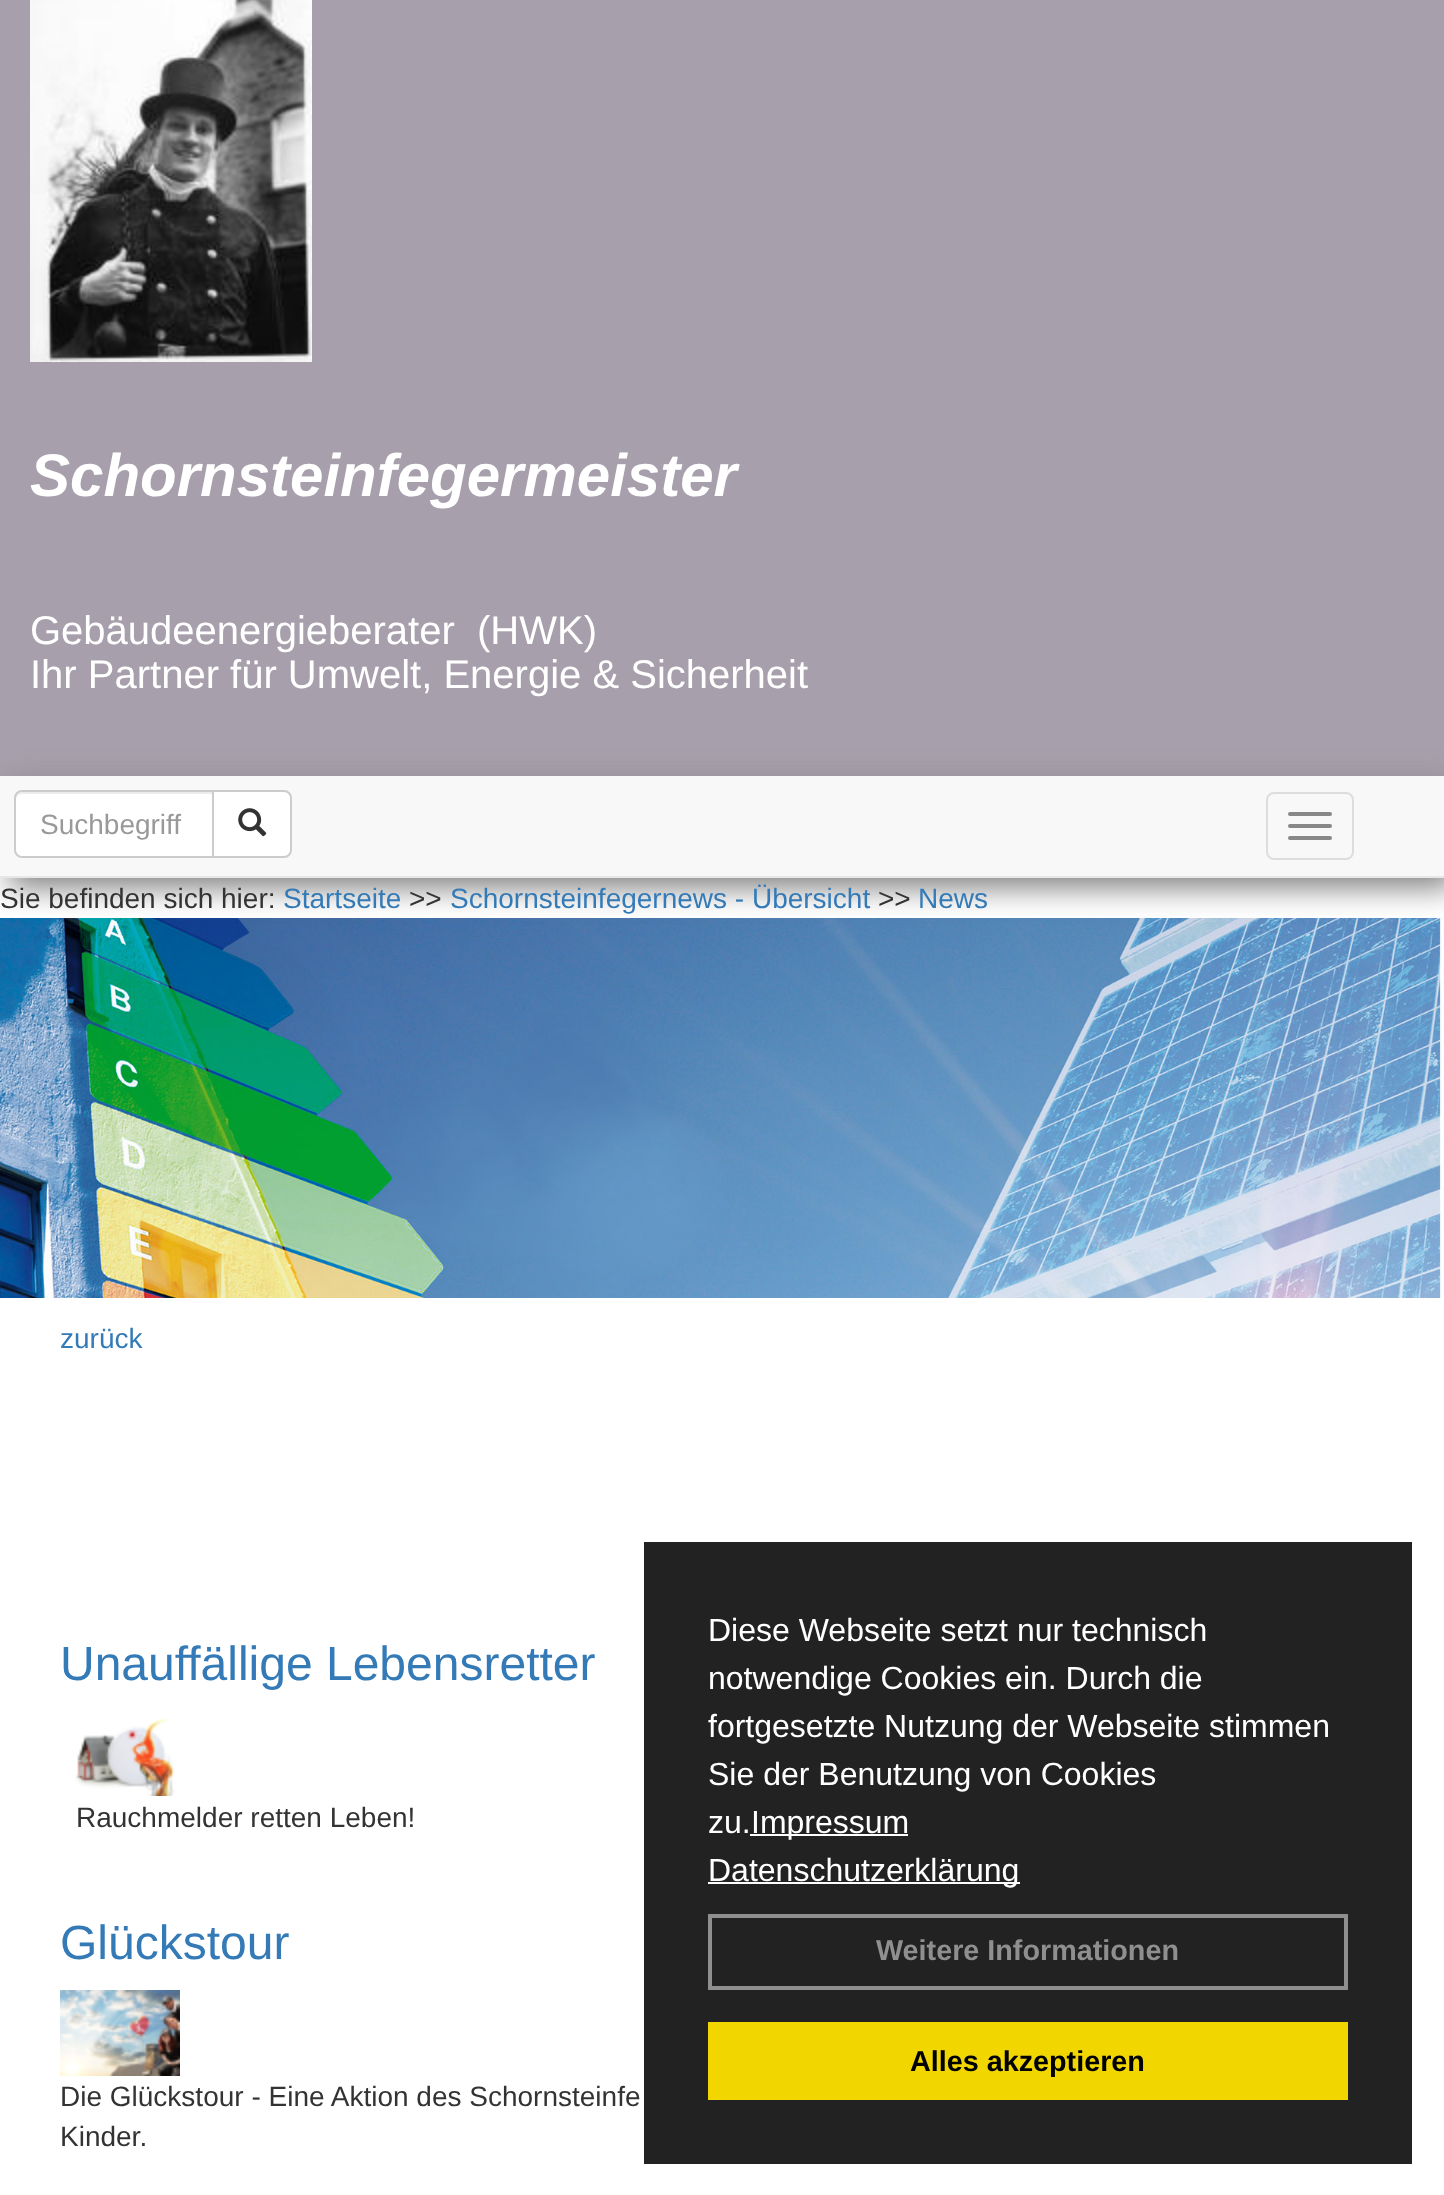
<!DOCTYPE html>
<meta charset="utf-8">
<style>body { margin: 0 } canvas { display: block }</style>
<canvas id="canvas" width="1444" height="2195"></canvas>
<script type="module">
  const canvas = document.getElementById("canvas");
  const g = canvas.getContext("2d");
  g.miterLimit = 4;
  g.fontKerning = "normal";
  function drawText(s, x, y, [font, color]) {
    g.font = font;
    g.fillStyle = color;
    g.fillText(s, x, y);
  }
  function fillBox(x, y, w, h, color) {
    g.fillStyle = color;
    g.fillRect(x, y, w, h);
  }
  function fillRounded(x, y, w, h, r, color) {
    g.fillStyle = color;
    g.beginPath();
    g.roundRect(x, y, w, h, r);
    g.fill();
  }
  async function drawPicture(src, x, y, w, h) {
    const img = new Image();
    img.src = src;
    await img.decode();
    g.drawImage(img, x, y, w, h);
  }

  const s1 = ["italic bold 60px Liberation Sans", "#FFFFFF"];
  const s2 = ["40px Liberation Sans", "#FFFFFF"];
  const s3 = ["28px Liberation Sans", "#999999"];
  const s4 = ["28px Liberation Sans", "#333333"];
  const s5 = ["28px Liberation Sans", "#337AB7"];
  const s6 = ["48px Liberation Sans", "#337AB7"];
  const s7 = ["32px Liberation Sans", "#FFFFFF"];
  const s8 = ["bold 28.75px Liberation Sans", "#8F8F8F"];
  const s9 = ["bold 28.75px Liberation Sans", "#000000"];

  fillBox(0, 0, 1444, 2195, "#FFFFFF");
  fillBox(0, 0, 1444, 776, "#A79FAB");
  await drawPicture("pic1.png", 30, 0, 282, 362);
  drawText("Schornsteinfegermeister", 30, 496, s1);
  drawText("Gebäudeenergieberater  (HWK)", 30, 644, s2);
  drawText("Ihr Partner für Umwelt, Energie & Sicherheit", 30, 688, s2);
  await drawPicture("pic3.png", 0, 918, 1444, 380);
  g.fillStyle = "#808080";
  g.filter = "blur(15px)";
  g.beginPath();
  g.rect(10, 786, 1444, 102);
  g.fill();
  g.filter = "none";
  fillBox(0, 776, 1444, 100, "#F8F8F8");
  fillBox(0, 876, 1444, 2, "#E7E7E7");
  g.fillStyle = "#FFFFFF";
  g.beginPath();
  g.roundRect(14, 790, 200, 68, [8, 0, 0, 8]);
  g.fill();
  g.fillStyle = "#ECECEC";
  g.beginPath();
  g.moveTo(22, 794);
  g.lineTo(212, 794);
  g.lineTo(212, 792);
  g.lineTo(22, 792);
  g.bezierCurveTo(19, 792, 16, 795, 16, 798);
  g.lineTo(16, 800);
  g.bezierCurveTo(16, 797, 19, 794, 22, 794);
  g.closePath();
  g.fill();
  g.beginPath();
  g.roundRect(15, 791, 198, 66, [7, 0, 0, 7]);
  g.strokeStyle = "#CCCCCC";
  g.lineWidth = 2;
  g.stroke();
  drawText("Suchbegriff", 40, 834, s3);
  g.fillStyle = "#FFFFFF";
  g.beginPath();
  g.roundRect(213, 791, 78, 66, [0, 7, 7, 0]);
  g.fill();
  g.stroke();
  await drawPicture("pic2.png", 238, 808, 29, 29);
  g.beginPath();
  g.roundRect(1267, 793, 86, 66, 7);
  g.strokeStyle = "#DDDDDD";
  g.stroke();
  fillRounded(1288, 812, 44, 4, 2, "#888888");
  fillRounded(1288, 824, 44, 4, 2, "#888888");
  fillRounded(1288, 836, 44, 4, 2, "#888888");
  drawText("Sie befinden sich hier:", 0, 908, s4);
  drawText("Startseite", 283, 908, s5);
  drawText(">>", 409, 908, s4);
  drawText("Schornsteinfegernews - Übersicht", 450, 908, s5);
  drawText(">>", 878, 908, s4);
  drawText("News", 918, 908, s5);
  drawText("zurück", 60, 1348, s5);
  drawText("Unauffällige Lebensretter", 60, 1680, s6);
  await drawPicture("pic4.png", 75, 1718, 100, 78);
  drawText("Rauchmelder retten Leben!", 76, 1827, s4);
  drawText("Glückstour", 60, 1959, s6);
  await drawPicture("pic5.png", 60, 1990, 120, 86);
  drawText("Die Glückstour - Eine Aktion des Schornsteinfe", 60, 2106, s4);
  drawText("Kinder.", 60, 2146, s4);
  fillBox(644, 1542, 768, 622, "#222222");
  drawText("Diese Webseite setzt nur technisch", 708, 1641, s7);
  drawText("notwendige Cookies ein. Durch die", 708, 1689, s7);
  drawText("fortgesetzte Nutzung der Webseite stimmen", 708, 1737, s7);
  drawText("Sie der Benutzung von Cookies", 708, 1785, s7);
  drawText("zu.", 708, 1833, s7);
  fillBox(750, 1834, 158, 2, "#FFFFFF");
  drawText("Impressum", 751, 1833, s7);
  fillBox(708, 1882, 312, 2, "#FFFFFF");
  drawText("Datenschutzerklärung", 708, 1881, s7);
  g.strokeStyle = "#8F8F8F";
  g.lineWidth = 4;
  g.strokeRect(710, 1916, 636, 72);
  drawText("Weitere Informationen", 876, 1960, s8);
  fillBox(708, 2022, 640, 78, "#F1D600");
  drawText("Alles akzeptieren", 910, 2071, s9);
</script>
